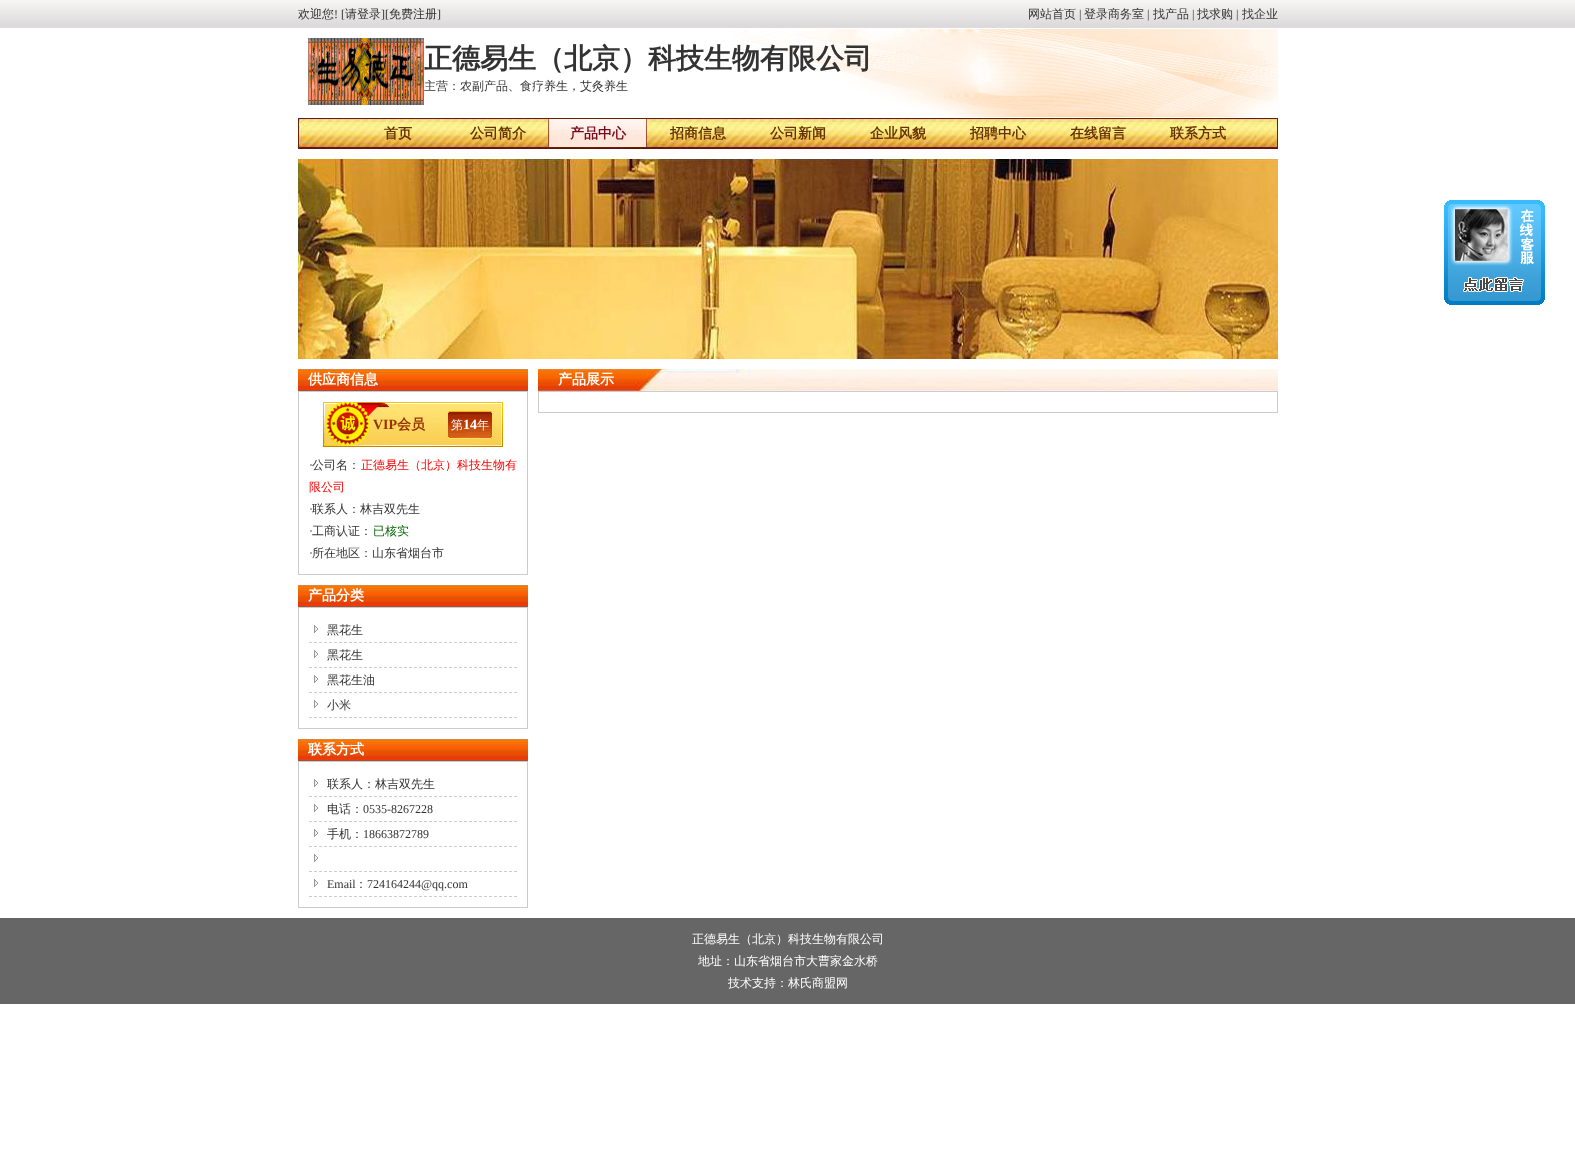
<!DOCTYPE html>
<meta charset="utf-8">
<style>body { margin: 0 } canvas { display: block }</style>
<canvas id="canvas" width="1575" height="1156"></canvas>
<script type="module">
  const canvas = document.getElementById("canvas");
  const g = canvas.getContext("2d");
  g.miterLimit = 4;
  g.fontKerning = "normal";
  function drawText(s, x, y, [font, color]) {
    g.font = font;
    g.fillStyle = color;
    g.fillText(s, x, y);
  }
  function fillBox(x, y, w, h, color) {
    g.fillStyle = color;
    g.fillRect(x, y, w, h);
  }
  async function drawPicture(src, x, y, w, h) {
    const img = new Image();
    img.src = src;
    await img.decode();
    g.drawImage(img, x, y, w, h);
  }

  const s1 = ["500 12px WenQuanYi Zen Hei", "#333333"];
  const s2 = ["12px Liberation Serif", "#333333"];
  const s3 = ["bold 28px WenQuanYi Zen Hei", "#333333"];
  const s4 = ["bold 14px WenQuanYi Zen Hei", "#663300"];
  const s5 = ["bold 14px WenQuanYi Zen Hei", "#780B22"];
  const s6 = ["bold 14px WenQuanYi Zen Hei", "#FFFFFF"];
  const s7 = ["bold 14px Liberation Serif", "#993300"];
  const s8 = ["bold 14px WenQuanYi Zen Hei", "#993300"];
  const s9 = ["500 12px WenQuanYi Zen Hei", "#FFFFFF"];
  const s10 = ["bold 14px Liberation Serif", "#FFFFFF"];
  const s11 = ["500 12px WenQuanYi Zen Hei", "#FF0000"];
  const s12 = ["500 12px WenQuanYi Zen Hei", "#006600"];

  fillBox(0, 0, 1575, 1156, "#FFFFFF");
  await drawPicture("pic1.png", 0, 0, 1575, 28);
  drawText("欢迎您", 298, 18, s1);
  drawText("! [", 334, 18, s2);
  drawText("请登录", 345, 18, s1);
  drawText("][", 381, 18, s2);
  drawText("免费注册", 389, 18, s1);
  drawText("]", 437, 18, s2);
  drawText("网站首页", 1028, 18, s1);
  drawText("|", 1079, 18, s2);
  drawText("登录商务室", 1084, 18, s1);
  drawText("|", 1147, 18, s2);
  drawText("找产品", 1153, 18, s1);
  drawText("|", 1192, 18, s2);
  drawText("找求购", 1197, 18, s1);
  drawText("|", 1236, 18, s2);
  drawText("找企业", 1242, 18, s1);
  await drawPicture("pic2.png", 732, 29, 546, 88);
  await drawPicture("pic3.png", 308, 38, 116, 67);
  drawText("正德易生（北京）科技生物有限公司", 424, 68, s3);
  drawText("主营：农副产品、食疗养生，艾灸养生", 424, 90, s1);
  await drawPicture("pic4.png", 298, 118, 980, 31);
  drawText("首页", 384, 138, s4);
  drawText("公司简介", 470, 138, s4);
  await drawPicture("pic5.png", 548, 119, 99, 30);
  drawText("产品中心", 570, 138, s5);
  drawText("招商信息", 670, 138, s4);
  drawText("公司新闻", 770, 138, s4);
  drawText("企业风貌", 870, 138, s4);
  drawText("招聘中心", 970, 138, s4);
  drawText("在线留言", 1070, 138, s4);
  drawText("联系方式", 1170, 138, s4);
  await drawPicture("pic6.png", 298, 159, 980, 200);
  await drawPicture("pic7.png", 1444, 200, 101, 105);
  await drawPicture("pic8.png", 298, 369, 230, 22);
  drawText("供应商信息", 308, 384, s6);
  g.strokeStyle = "#CCCCCC";
  g.strokeRect(298.5, 391.5, 229, 183);
  await drawPicture("pic9.png", 323, 402, 180, 45);
  drawText("VIP", 373, 429, s7);
  drawText("会员", 397, 429, s8);
  drawText("第", 451, 429, s9);
  drawText("14", 463, 429, s10);
  drawText("年", 477, 429, s9);
  drawText("·", 309, 469, s2);
  drawText("公司名：", 312, 469, s1);
  drawText("正德易生（北京）科技生物有", 361, 469, s11);
  drawText("限公司", 309, 491, s11);
  drawText("·", 309, 513, s2);
  drawText("联系人：林吉双先生", 312, 513, s1);
  drawText("·", 309, 535, s2);
  drawText("工商认证：", 312, 535, s1);
  drawText("已核实", 373, 535, s12);
  drawText("·", 309, 557, s2);
  drawText("所在地区：山东省烟台市", 312, 557, s1);
  await drawPicture("pic8.png", 298, 585, 230, 22);
  drawText("产品分类", 308, 600, s6);
  g.strokeRect(298.5, 607.5, 229, 121);
  await drawPicture("pic10.png", 314, 625, 4, 8);
  g.beginPath();
  g.moveTo(309, 642.5);
  g.lineTo(517, 642.5);
  g.setLineDash([3, 2]);
  g.stroke();
  drawText("黑花生", 327, 634, s1);
  await drawPicture("pic10.png", 314, 650, 4, 8);
  g.beginPath();
  g.moveTo(309, 667.5);
  g.lineTo(517, 667.5);
  g.stroke();
  drawText("黑花生", 327, 659, s1);
  await drawPicture("pic10.png", 314, 675, 4, 8);
  g.beginPath();
  g.moveTo(309, 692.5);
  g.lineTo(517, 692.5);
  g.stroke();
  drawText("黑花生油", 327, 684, s1);
  await drawPicture("pic10.png", 314, 700, 4, 8);
  g.beginPath();
  g.moveTo(309, 717.5);
  g.lineTo(517, 717.5);
  g.stroke();
  drawText("小米", 327, 709, s1);
  await drawPicture("pic8.png", 298, 739, 230, 22);
  drawText("联系方式", 308, 754, s6);
  g.setLineDash([]);
  g.strokeRect(298.5, 761.5, 229, 146);
  await drawPicture("pic10.png", 314, 779, 4, 8);
  g.beginPath();
  g.moveTo(309, 796.5);
  g.lineTo(517, 796.5);
  g.setLineDash([3, 2]);
  g.stroke();
  drawText("联系人：林吉双先生", 327, 788, s1);
  await drawPicture("pic10.png", 314, 804, 4, 8);
  g.beginPath();
  g.moveTo(309, 821.5);
  g.lineTo(517, 821.5);
  g.stroke();
  drawText("电话：", 327, 813, s1);
  drawText("0535-8267228", 363, 813, s2);
  await drawPicture("pic10.png", 314, 829, 4, 8);
  g.beginPath();
  g.moveTo(309, 846.5);
  g.lineTo(517, 846.5);
  g.stroke();
  drawText("手机：", 327, 838, s1);
  drawText("18663872789", 363, 838, s2);
  await drawPicture("pic10.png", 314, 854, 4, 8);
  g.beginPath();
  g.moveTo(309, 871.5);
  g.lineTo(517, 871.5);
  g.stroke();
  await drawPicture("pic10.png", 314, 879, 4, 8);
  g.beginPath();
  g.moveTo(309, 896.5);
  g.lineTo(517, 896.5);
  g.stroke();
  drawText("Email", 327, 888, s2);
  drawText("：", 355, 888, s1);
  drawText("724164244@qq.com", 367, 888, s2);
  await drawPicture("pic11.png", 538, 369, 740, 22);
  drawText("产品展示", 558, 384, s6);
  g.setLineDash([]);
  g.strokeRect(538.5, 391.5, 739, 21);
  fillBox(0, 918, 1575, 86, "#666666");
  drawText("正德易生（北京）科技生物有限公司", 692, 943, s9);
  drawText("地址：山东省烟台市大曹家金水桥", 698, 965, s9);
  drawText("技术支持：林氏商盟网", 728, 987, s9);
</script>
